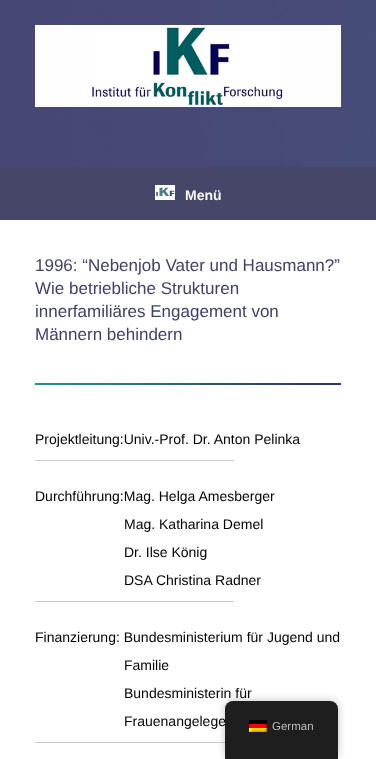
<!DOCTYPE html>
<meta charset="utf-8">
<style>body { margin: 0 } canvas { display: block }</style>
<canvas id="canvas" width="376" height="759"></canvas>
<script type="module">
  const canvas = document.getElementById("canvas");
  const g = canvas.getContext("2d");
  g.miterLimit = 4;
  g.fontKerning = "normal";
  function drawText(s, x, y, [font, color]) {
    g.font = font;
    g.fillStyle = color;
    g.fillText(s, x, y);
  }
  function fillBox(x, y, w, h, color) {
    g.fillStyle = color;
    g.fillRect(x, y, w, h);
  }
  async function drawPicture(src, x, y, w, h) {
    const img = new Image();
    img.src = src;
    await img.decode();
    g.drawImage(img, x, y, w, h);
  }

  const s1 = ["bold 14px Liberation Sans", "#F9F9F9"];
  const s2 = ["17px Liberation Sans", "#404168"];
  const s3 = ["14px Liberation Sans", "#020202"];
  const s4 = ["11.5px Liberation Sans", "#BDBDBD"];

  fillBox(0, 0, 376, 759, "#FFFFFF");
  await drawPicture("pic1.png", 0, 0, 376, 167);
  await drawPicture("pic2.png", 35, 25, 306, 82);
  fillBox(0, 167, 376, 53, "#464768");
  await drawPicture("pic3.png", 155, 185, 20, 15);
  drawText("Menü", 185, 200, s1);
  drawText("1996: “Nebenjob Vater und Hausmann?”", 35, 271, s2);
  drawText("Wie betriebliche Strukturen", 35, 294, s2);
  drawText("innerfamiliäres Engagement von", 35, 317, s2);
  drawText("Männern behindern", 35, 340, s2);
  await drawPicture("pic4.png", 35, 383, 306, 2);
  drawText("Projektleitung:Univ.-Prof. Dr. Anton Pelinka", 35, 444, s3);
  fillBox(35, 460, 199, 1, "#CCCCCC");
  drawText("Durchführung:Mag. Helga Amesberger", 35, 501, s3);
  drawText("Mag. Katharina Demel", 124, 529, s3);
  drawText("Dr. Ilse König", 124, 557, s3);
  drawText("DSA Christina Radner", 124, 585, s3);
  fillBox(35, 601, 199, 1, "#CCCCCC");
  drawText("Finanzierung: Bundesministerium für Jugend und", 35, 642, s3);
  drawText("Familie", 124, 670, s3);
  drawText("Bundesministerin für", 124, 698, s3);
  drawText("Frauenangelege", 124, 726, s3);
  fillBox(35, 742, 190, 1, "#CCCCCC");
  g.fillStyle = "rgba(0, 0, 0, 0.25)";
  g.filter = "blur(4px)";
  g.beginPath();
  g.roundRect(225, 701, 113, 58, 8);
  g.fill();
  g.filter = "none";
  g.fillStyle = "#1E1E1E";
  g.beginPath();
  g.roundRect(225, 701, 113, 58, [8, 8, 0, 0]);
  g.fill();
  await drawPicture("pic5.png", 249, 720, 18, 12);
  drawText("German", 272, 730, s4);
</script>
